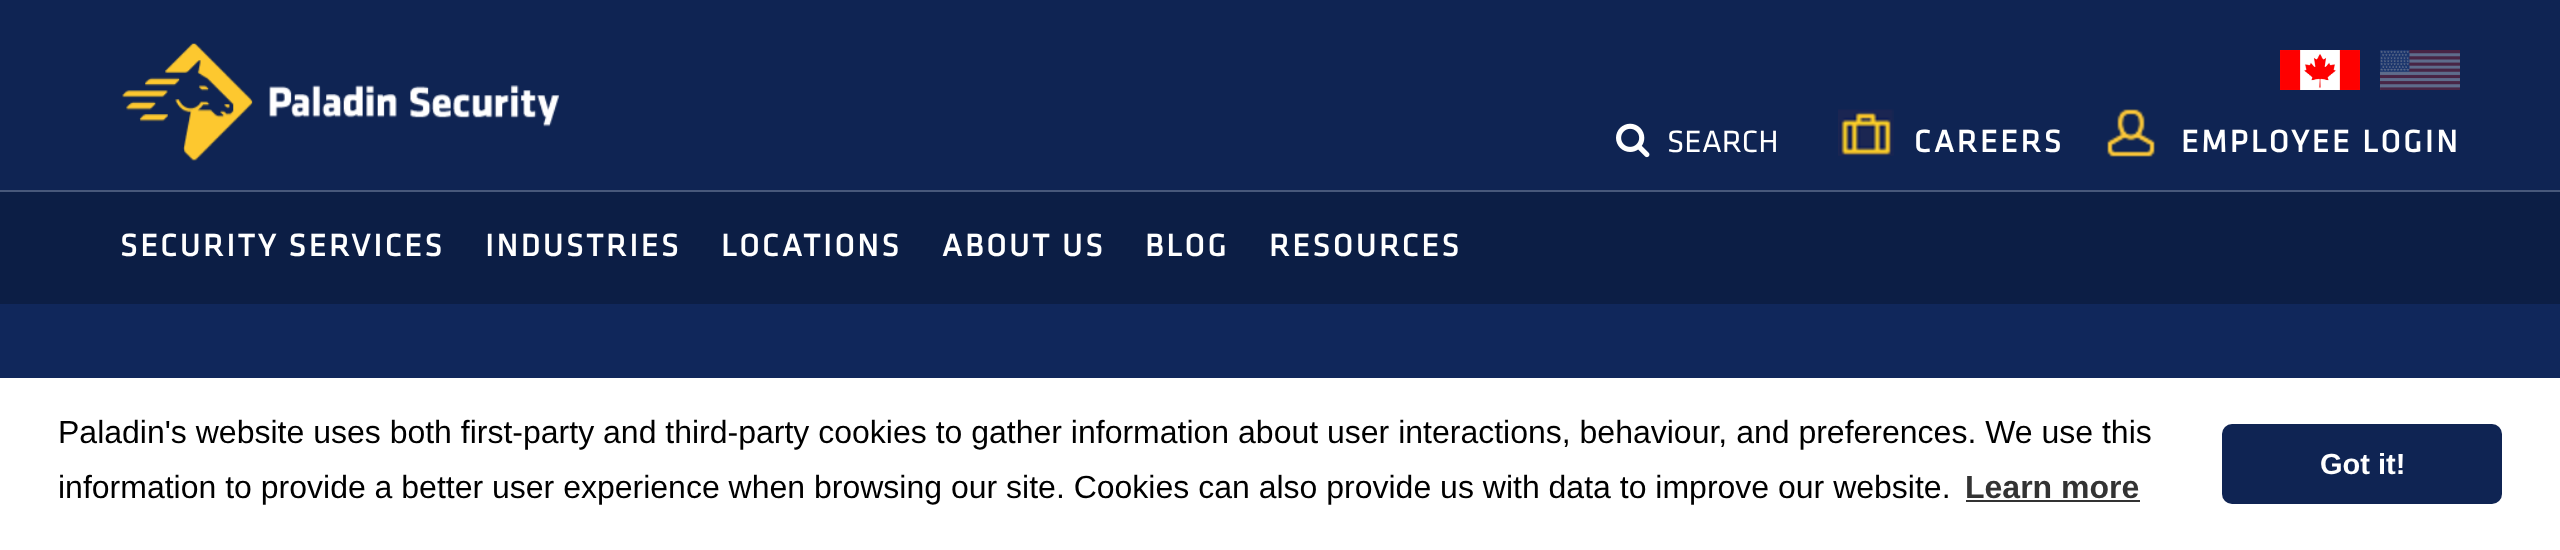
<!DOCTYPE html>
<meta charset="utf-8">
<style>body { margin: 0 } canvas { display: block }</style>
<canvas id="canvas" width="2560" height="550"></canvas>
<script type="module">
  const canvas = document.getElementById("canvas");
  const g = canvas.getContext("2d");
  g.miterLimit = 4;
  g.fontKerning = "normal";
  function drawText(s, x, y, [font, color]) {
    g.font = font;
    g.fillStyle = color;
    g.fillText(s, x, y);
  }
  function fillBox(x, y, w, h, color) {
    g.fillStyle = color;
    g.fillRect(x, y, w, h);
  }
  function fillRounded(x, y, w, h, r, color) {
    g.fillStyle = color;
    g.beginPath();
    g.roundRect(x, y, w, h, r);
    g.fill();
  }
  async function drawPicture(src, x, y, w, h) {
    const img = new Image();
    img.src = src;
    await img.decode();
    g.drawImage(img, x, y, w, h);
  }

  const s1 = ["32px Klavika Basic", "#FFFFFF"];
  const s2 = ["bold 32px Klavika Basic", "#FFFFFF"];
  const s3 = ["32px Liberation Sans", "#000000"];
  const s4 = ["bold 32px Liberation Sans", "#333333"];
  const s5 = ["bold 29px Liberation Sans", "#FFFFFF"];

  fillBox(0, 0, 2560, 550, "#10275B");
  fillBox(0, 0, 2560, 190, "#0F2453");
  fillBox(0, 190, 2560, 2, "#48587A");
  await drawPicture("pic1.png", 122, 43, 438, 118);
  await drawPicture("pic2.png", 2280, 50, 80, 40);
  await drawPicture("pic3.png", 2380, 50, 80, 40);
  await drawPicture("pic4.png", 1616, 123, 34, 35);
  drawText("SEARCH", 1667, 152, s1);
  await drawPicture("pic5.png", 1838, 109, 56, 47);
  g.letterSpacing = "3px";
  drawText("CAREERS", 1914, 152, s2);
  await drawPicture("pic6.png", 2107, 109, 48, 48);
  drawText("EMPLOYEE LOGIN", 2181, 152, s2);
  fillBox(0, 192, 2560, 112, "#0C1E45");
  drawText("SECURITY SERVICES", 120, 256, s2);
  drawText("INDUSTRIES", 485, 256, s2);
  drawText("LOCATIONS", 721, 256, s2);
  drawText("ABOUT US", 942, 256, s2);
  drawText("BLOG", 1145, 256, s2);
  drawText("RESOURCES", 1269, 256, s2);
  fillBox(0, 378, 2560, 172, "#FFFFFF");
  g.letterSpacing = "0px";
  drawText("Paladin's website uses both first-party and third-party cookies to gather information about user interactions, behaviour, and preferences. We use this", 58, 443, s3);
  drawText("information to provide a better user experience when browsing our site. Cookies can also provide us with data to improve our website.", 58, 498, s3);
  drawText("Learn more", 1965, 498, s4);
  fillBox(1966, 500, 174, 2, "#333333");
  fillRounded(2222, 424, 280, 80, 10, "#0F2453");
  drawText("Got it!", 2320, 474, s5);
</script>
